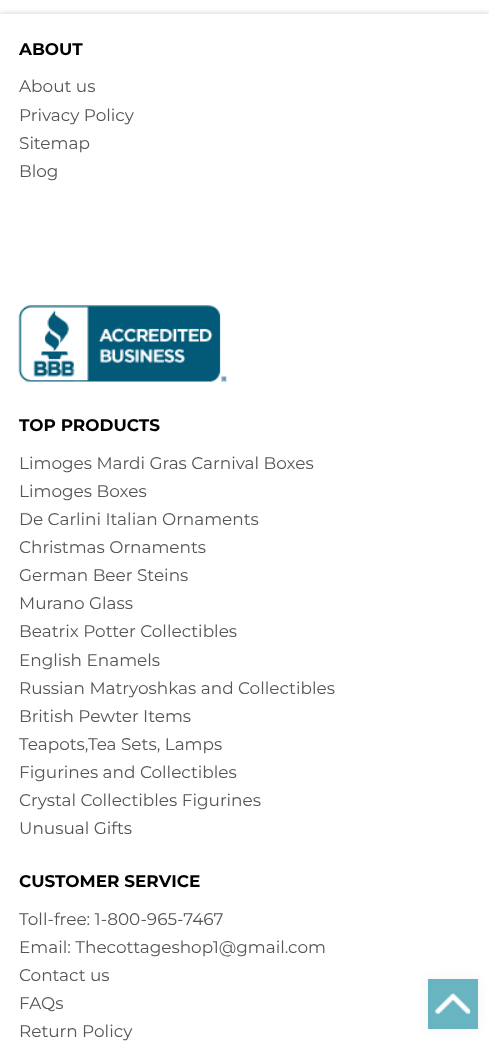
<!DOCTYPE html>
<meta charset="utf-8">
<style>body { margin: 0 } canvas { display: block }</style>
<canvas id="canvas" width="489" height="1041"></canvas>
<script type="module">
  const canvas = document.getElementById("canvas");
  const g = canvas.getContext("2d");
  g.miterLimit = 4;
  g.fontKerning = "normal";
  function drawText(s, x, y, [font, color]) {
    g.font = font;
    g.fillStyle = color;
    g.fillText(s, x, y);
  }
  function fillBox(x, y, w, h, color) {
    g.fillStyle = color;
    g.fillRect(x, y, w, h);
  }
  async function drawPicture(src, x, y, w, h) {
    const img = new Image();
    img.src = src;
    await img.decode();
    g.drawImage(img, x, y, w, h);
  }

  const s1 = ["bold 16.9px Montserrat", "#000000"];
  const s2 = ["16.9px Montserrat", "#555555"];

  fillBox(0, 0, 489, 1041, "#FFFFFF");
  g.save();
  g.beginPath();
  g.rect(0, 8, 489, 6);
  g.clip();
  g.fillStyle = "#CCCCCC";
  g.filter = "blur(3px)";
  g.beginPath();
  g.rect(0, 14, 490, 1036);
  g.fill();
  g.filter = "none";
  g.restore();
  drawText("ABOUT", 19, 55, s1);
  drawText("About us", 19, 92, s2);
  drawText("Privacy Policy", 19, 121, s2);
  drawText("Sitemap", 19, 149, s2);
  drawText("Blog", 19, 177, s2);
  await drawPicture("pic1.png", 18, 305, 209, 77);
  drawText("TOP PRODUCTS", 19, 431, s1);
  drawText("Limoges Mardi Gras Carnival Boxes", 19, 469, s2);
  drawText("Limoges Boxes", 19, 497, s2);
  drawText("De Carlini Italian Ornaments", 19, 525, s2);
  drawText("Christmas Ornaments", 19, 553, s2);
  drawText("German Beer Steins", 19, 581, s2);
  drawText("Murano Glass", 19, 609, s2);
  drawText("Beatrix Potter Collectibles", 19, 637, s2);
  drawText("English Enamels", 19, 666, s2);
  drawText("Russian Matryoshkas and Collectibles", 19, 694, s2);
  drawText("British Pewter Items", 19, 722, s2);
  drawText("Teapots,Tea Sets, Lamps", 19, 750, s2);
  drawText("Figurines and Collectibles", 19, 778, s2);
  drawText("Crystal Collectibles Figurines", 19, 806, s2);
  drawText("Unusual Gifts", 19, 834, s2);
  drawText("CUSTOMER SERVICE", 19, 887, s1);
  drawText("Toll-free: 1-800-965-7467", 19, 925, s2);
  drawText("Email: Thecottageshop1@gmail.com", 19, 953, s2);
  drawText("Contact us", 19, 981, s2);
  drawText("FAQs", 19, 1009, s2);
  drawText("Return Policy", 19, 1037, s2);
  g.fillStyle = "rgba(0, 0, 0, 0.05)";
  g.filter = "blur(6px)";
  g.beginPath();
  g.rect(428, 979, 50, 50);
  g.fill();
  g.filter = "none";
  fillBox(428, 979, 50, 50, "#69B4C1");
  await drawPicture("pic2.png", 434, 993, 37, 21);
</script>
